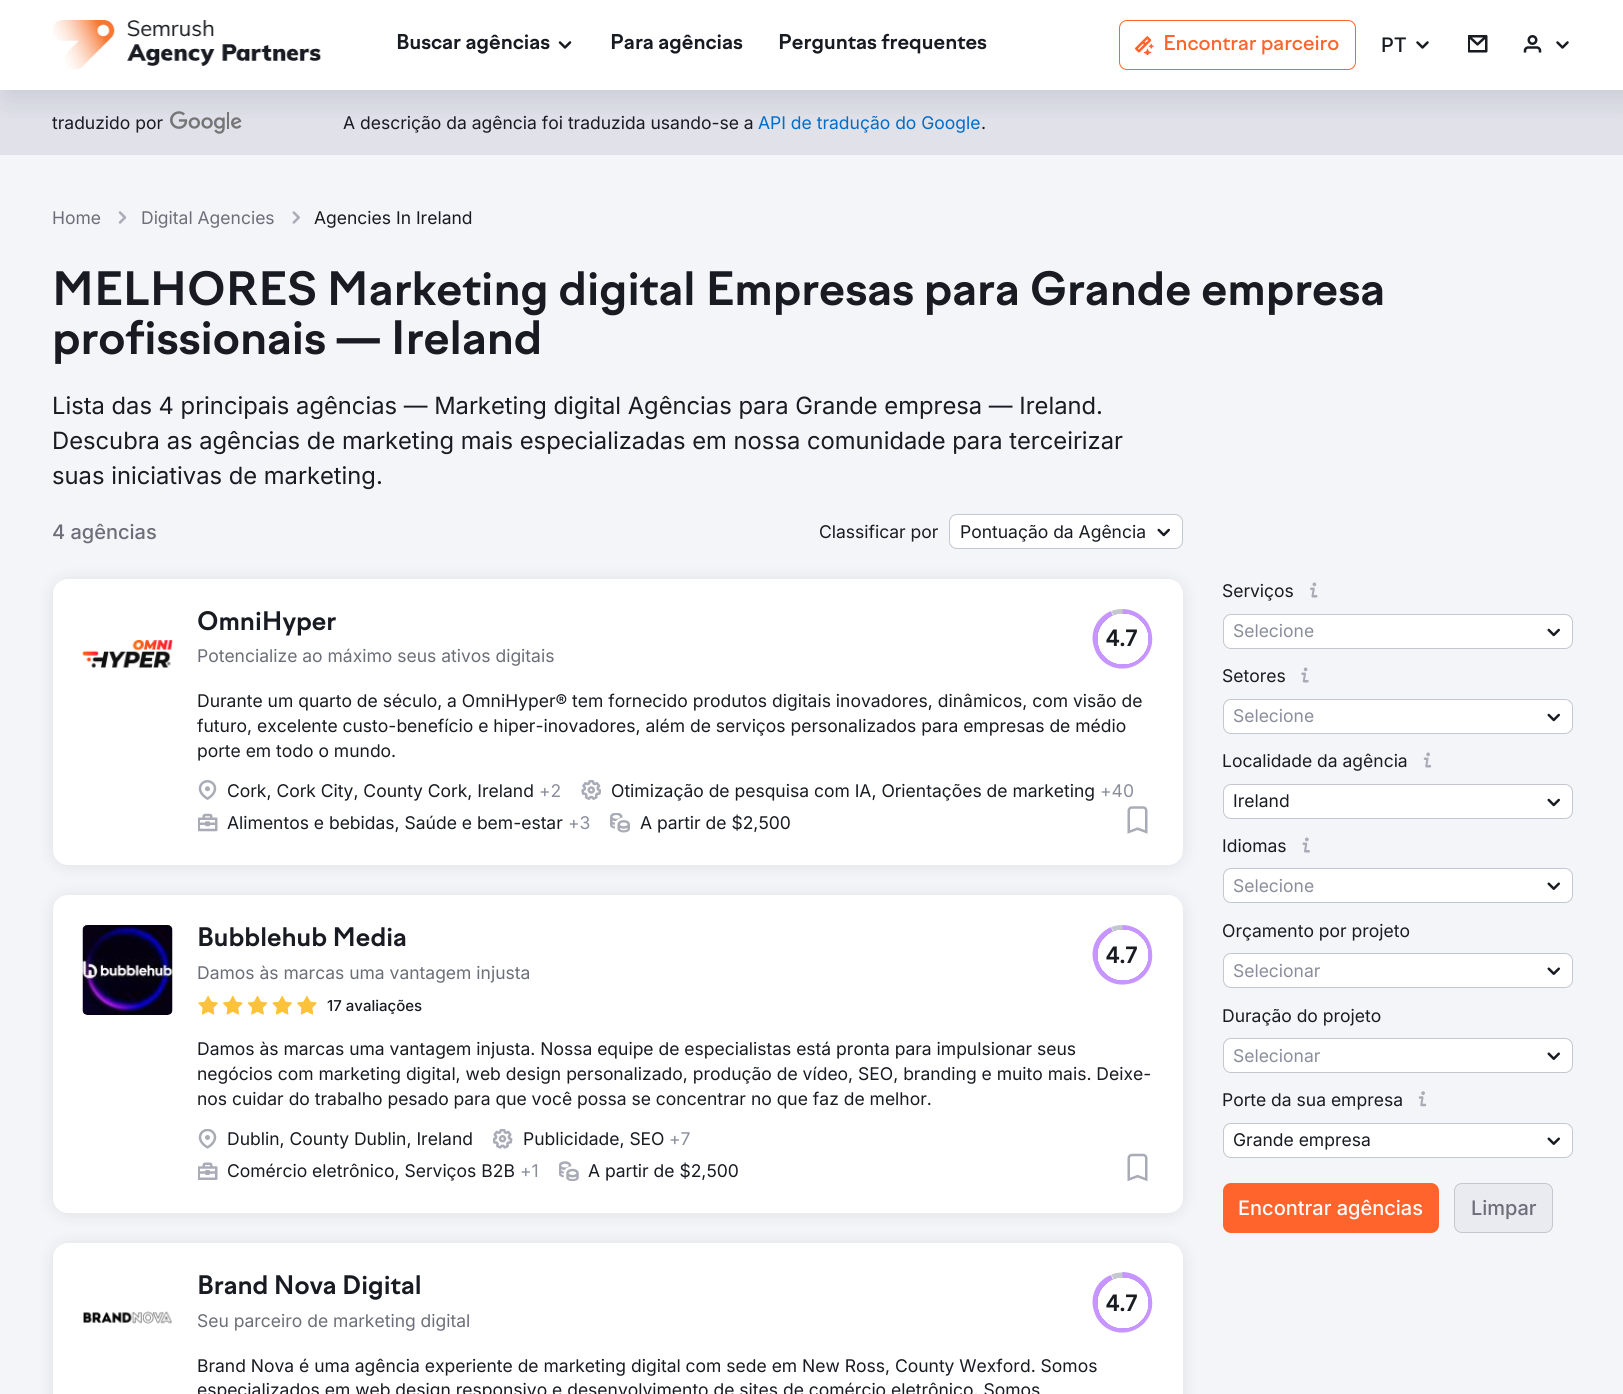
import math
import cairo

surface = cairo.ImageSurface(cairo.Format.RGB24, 1623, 1394)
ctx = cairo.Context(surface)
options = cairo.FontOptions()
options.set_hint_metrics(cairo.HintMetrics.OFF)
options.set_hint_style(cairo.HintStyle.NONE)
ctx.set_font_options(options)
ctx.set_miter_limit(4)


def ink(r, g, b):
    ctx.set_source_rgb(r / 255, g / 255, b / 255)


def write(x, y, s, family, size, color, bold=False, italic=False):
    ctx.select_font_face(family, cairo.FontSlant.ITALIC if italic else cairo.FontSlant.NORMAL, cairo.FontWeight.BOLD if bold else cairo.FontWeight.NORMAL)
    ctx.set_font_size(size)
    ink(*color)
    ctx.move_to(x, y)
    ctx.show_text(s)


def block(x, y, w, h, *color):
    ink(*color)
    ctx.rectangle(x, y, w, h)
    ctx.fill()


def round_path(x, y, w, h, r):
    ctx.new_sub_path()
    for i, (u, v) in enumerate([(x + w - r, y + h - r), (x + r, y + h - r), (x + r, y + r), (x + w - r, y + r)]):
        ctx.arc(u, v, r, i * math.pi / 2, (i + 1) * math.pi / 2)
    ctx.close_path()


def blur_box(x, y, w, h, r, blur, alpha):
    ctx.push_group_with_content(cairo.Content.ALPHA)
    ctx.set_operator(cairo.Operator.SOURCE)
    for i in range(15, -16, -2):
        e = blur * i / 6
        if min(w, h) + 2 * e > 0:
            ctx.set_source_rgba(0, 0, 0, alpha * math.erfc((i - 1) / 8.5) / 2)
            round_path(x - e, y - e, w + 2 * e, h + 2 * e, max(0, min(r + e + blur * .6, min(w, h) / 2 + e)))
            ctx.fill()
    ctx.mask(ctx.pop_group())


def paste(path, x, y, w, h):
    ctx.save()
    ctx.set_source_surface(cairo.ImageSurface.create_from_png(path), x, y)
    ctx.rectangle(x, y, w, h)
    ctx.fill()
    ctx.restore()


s1 = dict(family="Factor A", size=20, color=(25, 27, 35), bold=True)
s2 = dict(family="Factor A Medium", size=20, color=(255, 100, 45))
s3 = dict(family="Inter Medium", size=20, color=(25, 27, 35))
s4 = dict(family="Inter", size=17.5, color=(25, 27, 35))
s5 = dict(family="Inter", size=17.5, color=(0, 109, 202))
s6 = dict(family="Inter", size=17.5, color=(108, 110, 121))
s7 = dict(family="Factor A", size=45, color=(25, 27, 35), bold=True)
s8 = dict(family="Inter", size=23.75, color=(25, 27, 35))
s9 = dict(family="Inter Medium", size=20, color=(108, 110, 121))
s10 = dict(family="Factor A", size=25, color=(25, 27, 35), bold=True)
s11 = dict(family="Factor A", size=22, color=(25, 27, 35), bold=True)
s12 = dict(family="Inter", size=17.5, color=(138, 142, 155))
s13 = dict(family="Inter Medium", size=15, color=(25, 27, 35))
s14 = dict(family="Inter Medium", size=20, color=(255, 255, 255))

ink(255, 255, 255)
ctx.paint()
block(0, 90, 1623, 65, 224, 225, 233)
paste("pic7.png", 170, 111, 72, 23)
ctx.save()
ctx.rectangle(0, 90, 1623, 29)
ctx.clip()
ink(137, 141, 154)
blur_box(6, 6, 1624, 90, 0, 15.5, 0.3)
ctx.restore()
paste("pic1.png", 53, 20, 269, 50)
write(396, 49, "Buscar agências", **s1)
paste("pic2.png", 558, 41, 14, 8)
write(610, 49, "Para agências", **s1)
write(778, 49, "Perguntas frequentes", **s1)
round_path(1119.5, 20.5, 236, 49, 7.5)
ink(255, 100, 45)
ctx.set_line_width(1)
ctx.stroke()
paste("pic3.png", 1135, 36, 19, 19)
write(1163, 50, "Encontrar parceiro", **s2)
write(1381, 52, "PT", **s3)
paste("pic4.png", 1416, 41, 13, 8)
paste("pic5.png", 1468, 35, 20, 18)
paste("pic6.png", 1523, 35, 19, 18)
paste("pic4.png", 1556, 41, 13, 8)
write(52, 129, "traduzido por", **s4)
write(343, 129, "A descrição da agência foi traduzida usando-se a", **s4)
write(758, 129, "API de tradução do Google", **s5)
write(981, 129, ".", **s4)
block(0, 155, 1623, 1239, 244, 245, 249)
write(52, 224, "Home", **s6)
paste("pic8.png", 118, 211, 9, 13)
write(141, 224, "Digital Agencies", **s6)
paste("pic9.png", 292, 211, 8, 13)
write(314, 224, "Agencies In Ireland", **s4)
write(52, 305, "MELHORES Marketing digital Empresas para Grande empresa", **s7)
write(52, 354, "profissionais — Ireland", **s7)
write(52, 414, "Lista das 4 principais agências — Marketing digital Agências para Grande empresa — Ireland.", **s8)
write(52, 449, "Descubra as agências de marketing mais especializadas em nossa comunidade para terceirizar", **s8)
write(52, 484, "suas iniciativas de marketing.", **s8)
write(52, 539, "4 agências", **s9)
write(819, 538, "Classificar por", **s4)
ink(255, 255, 255)
round_path(949.5, 514.5, 233, 34, 7.5)
ctx.fill_preserve()
ink(196, 199, 207)
ctx.stroke()
write(960, 538, "Pontuação da Agência", **s4)
paste("pic10.png", 1157, 528, 13, 9)
ink(25, 27, 35)
blur_box(53, 580, 1130, 286, 15, 7.5, 0.1)
ink(255, 255, 255)
round_path(53, 579, 1130, 286, 15)
ctx.fill()
write(197, 630, "OmniHyper", **s10)
write(197, 662, "Potencialize ao máximo seus ativos digitais", **s6)
ink(198, 149, 255)
ctx.new_path()
ctx.move_to(1122, 639)
ctx.line_to(1122, 609)
ctx.curve_to(1138, 609, 1151, 621, 1152, 636)
ctx.curve_to(1154, 651, 1143, 665, 1128, 668)
ctx.curve_to(1113, 671, 1098, 662, 1094, 647)
ctx.curve_to(1089, 632, 1097, 617, 1111, 611)
ctx.close_path()
ctx.fill()
ink(196, 199, 207)
ctx.new_path()
ctx.move_to(1122.5, 639)
ctx.line_to(1111.5, 611)
ctx.curve_to(1115, 609.5, 1118.5, 609, 1122.5, 609)
ctx.close_path()
ctx.fill()
gradient = cairo.RadialGradient(1123, 639, 0, 1123, 639, 30)
gradient.add_color_stop_rgba(0.84, 1, 1, 1, 1)
gradient.add_color_stop_rgba(0.85, 1, 1, 1, 0)
gradient.add_color_stop_rgba(1, 0, 0, 0, 0)
ctx.set_source(gradient)
ctx.rectangle(1098, 614, 50, 50)
ctx.fill()
write(1106, 646, "4.7", **s11)
paste("pic11.png", 82, 640, 91, 28)
write(197, 707, "Durante um quarto de século, a OmniHyper® tem fornecido produtos digitais inovadores, dinâmicos, com visão de", **s4)
write(197, 732, "futuro, excelente custo-benefício e hiper-inovadores, além de serviços personalizados para empresas de médio", **s4)
write(197, 757, "porte em todo o mundo.", **s4)
paste("pic12.png", 198, 780, 19, 20)
write(227, 797, "Cork, Cork City, County Cork, Ireland", **s4)
write(539, 797, "+2", **s12)
paste("pic13.png", 581, 780, 20, 20)
write(611, 797, "Otimização de pesquisa com IA, Orientações de marketing", **s4)
write(1100, 797, "+40", **s12)
paste("pic14.png", 198, 813, 20, 19)
write(227, 829, "Alimentos e bebidas, Saúde e bem-estar", **s4)
write(568, 829, "+3", **s12)
paste("pic15.png", 610, 813, 20, 20)
write(640, 829, "A partir de $2,500", **s4)
paste("pic16.png", 1127, 806, 21, 28)
ink(25, 27, 35)
blur_box(53, 896, 1130, 318, 15, 7.5, 0.1)
ink(255, 255, 255)
round_path(53, 895, 1130, 318, 15)
ctx.fill()
paste("pic17.png", 82, 925, 91, 90)
write(197, 946, "Bubblehub Media", **s10)
write(197, 979, "Damos às marcas uma vantagem injusta", **s6)
paste("pic18.png", 198, 995, 119, 20)
write(327, 1011, "17 avaliações", **s13)
ink(198, 149, 255)
ctx.new_path()
ctx.move_to(1122, 955)
ctx.line_to(1122, 925)
ctx.curve_to(1138, 925, 1151, 937, 1152, 952)
ctx.curve_to(1154, 968, 1143, 982, 1128, 984)
ctx.curve_to(1113, 987, 1098, 978, 1094, 963)
ctx.curve_to(1089, 949, 1097, 933, 1111, 927)
ctx.close_path()
ctx.fill()
ink(196, 199, 207)
ctx.new_path()
ctx.move_to(1122.5, 955)
ctx.line_to(1111.5, 927)
ctx.curve_to(1115, 925.5, 1118.5, 925, 1122.5, 925)
ctx.close_path()
ctx.fill()
gradient = cairo.RadialGradient(1123, 955, 0, 1123, 955, 30)
gradient.add_color_stop_rgba(0.84, 1, 1, 1, 1)
gradient.add_color_stop_rgba(0.85, 1, 1, 1, 0)
gradient.add_color_stop_rgba(1, 0, 0, 0, 0)
ctx.set_source(gradient)
ctx.rectangle(1098, 930, 50, 50)
ctx.fill()
write(1106, 963, "4.7", **s11)
write(197, 1055, "Damos às marcas uma vantagem injusta. Nossa equipe de especialistas está pronta para impulsionar seus", **s4)
write(197, 1080, "negócios com marketing digital, web design personalizado, produção de vídeo, SEO, branding e muito mais. Deixe-", **s4)
write(197, 1105, "nos cuidar do trabalho pesado para que você possa se concentrar no que faz de melhor.", **s4)
paste("pic19.png", 198, 1129, 19, 20)
write(227, 1145, "Dublin, County Dublin, Ireland", **s4)
paste("pic20.png", 493, 1129, 20, 20)
write(523, 1145, "Publicidade, SEO", **s4)
write(669, 1145, "+7", **s12)
paste("pic21.png", 198, 1162, 20, 18)
write(227, 1177, "Comércio eletrônico, Serviços B2B", **s4)
write(520, 1177, "+1", **s12)
paste("pic22.png", 559, 1161, 20, 20)
write(588, 1177, "A partir de $2,500", **s4)
paste("pic23.png", 1127, 1153, 21, 29)
ink(25, 27, 35)
blur_box(53, 1244, 1130, 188, 15, 7.5, 0.1)
ink(255, 255, 255)
round_path(53, 1243, 1130, 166, 15)
ctx.fill()
write(197, 1294, "Brand Nova Digital", **s10)
write(197, 1327, "Seu parceiro de marketing digital", **s6)
ink(198, 149, 255)
ctx.new_path()
ctx.move_to(1122, 1302)
ctx.line_to(1122, 1272)
ctx.curve_to(1138, 1272, 1151, 1284, 1152, 1300)
ctx.curve_to(1154, 1315, 1143, 1329, 1128, 1332)
ctx.curve_to(1113, 1335, 1098, 1326, 1094, 1311)
ctx.curve_to(1089, 1296, 1097, 1280, 1111, 1275)
ctx.close_path()
ctx.fill()
ink(196, 199, 207)
ctx.new_path()
ctx.move_to(1122.5, 1302.5)
ctx.line_to(1111.5, 1274.5)
ctx.curve_to(1115, 1273, 1118.5, 1272.5, 1122.5, 1272.5)
ctx.close_path()
ctx.fill()
gradient = cairo.RadialGradient(1123, 1303, 0, 1123, 1303, 30)
gradient.add_color_stop_rgba(0.84, 1, 1, 1, 1)
gradient.add_color_stop_rgba(0.85, 1, 1, 1, 0)
gradient.add_color_stop_rgba(1, 0, 0, 0, 0)
ctx.set_source(gradient)
ctx.rectangle(1098, 1278, 50, 50)
ctx.fill()
write(1106, 1311, "4.7", **s11)
paste("pic24.png", 83, 1311, 89, 13)
write(197, 1372, "Brand Nova é uma agência experiente de marketing digital com sede em New Ross, County Wexford. Somos", **s4)
ctx.save()
ctx.rectangle(198, 1353, 955, 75)
ctx.clip()
write(197, 1396, "especializados em web design responsivo e desenvolvimento de sites de comércio eletrônico. Somos", **s4)
ctx.restore()
write(1222, 597, "Serviços", **s4)
paste("pic25.png", 1310, 582, 8, 16)
ink(255, 255, 255)
round_path(1223.5, 614.5, 349, 34, 7.5)
ctx.fill_preserve()
ink(196, 199, 207)
ctx.stroke()
write(1233, 637, "Selecione", **s12)
paste("pic10.png", 1547, 628, 13, 9)
write(1222, 682, "Setores", **s4)
paste("pic26.png", 1301, 667, 8, 16)
ink(255, 255, 255)
round_path(1223.5, 699.5, 349, 34, 7.5)
ctx.fill_preserve()
ink(196, 199, 207)
ctx.stroke()
write(1233, 722, "Selecione", **s12)
paste("pic10.png", 1547, 713, 13, 9)
write(1222, 767, "Localidade da agência", **s4)
paste("pic27.png", 1423, 752, 9, 16)
ink(255, 255, 255)
round_path(1223.5, 784.5, 349, 34, 7.5)
ctx.fill_preserve()
ink(196, 199, 207)
ctx.stroke()
write(1233, 807, "Ireland", **s4)
paste("pic10.png", 1547, 798, 13, 9)
write(1222, 852, "Idiomas", **s4)
paste("pic28.png", 1302, 837, 8, 16)
ink(255, 255, 255)
round_path(1223.5, 868.5, 349, 34, 7.5)
ctx.fill_preserve()
ink(196, 199, 207)
ctx.stroke()
write(1233, 892, "Selecione", **s12)
paste("pic29.png", 1547, 882, 13, 8)
write(1222, 937, "Orçamento por projeto", **s4)
ink(255, 255, 255)
round_path(1223.5, 953.5, 349, 34, 7.5)
ctx.fill_preserve()
ink(196, 199, 207)
ctx.stroke()
write(1233, 977, "Selecionar", **s12)
paste("pic29.png", 1547, 967, 13, 8)
write(1222, 1022, "Duração do projeto", **s4)
ink(255, 255, 255)
round_path(1223.5, 1038.5, 349, 34, 7.5)
ctx.fill_preserve()
ink(196, 199, 207)
ctx.stroke()
write(1233, 1062, "Selecionar", **s12)
paste("pic29.png", 1547, 1052, 13, 8)
write(1222, 1106, "Porte da sua empresa", **s4)
paste("pic30.png", 1418, 1091, 9, 16)
ink(255, 255, 255)
round_path(1223.5, 1123.5, 349, 34, 7.5)
ctx.fill_preserve()
ink(196, 199, 207)
ctx.stroke()
write(1233, 1146, "Grande empresa", **s4)
paste("pic29.png", 1547, 1137, 13, 8)
ink(255, 100, 45)
round_path(1223, 1183, 216, 50, 8)
ctx.fill()
write(1238, 1215, "Encontrar agências", **s14)
ink(233, 235, 240)
round_path(1454.5, 1183.5, 98, 49, 7.5)
ctx.fill_preserve()
ink(196, 199, 207)
ctx.stroke()
write(1471, 1215, "Limpar", **s9)
surface.write_to_png("screenshot.png")
